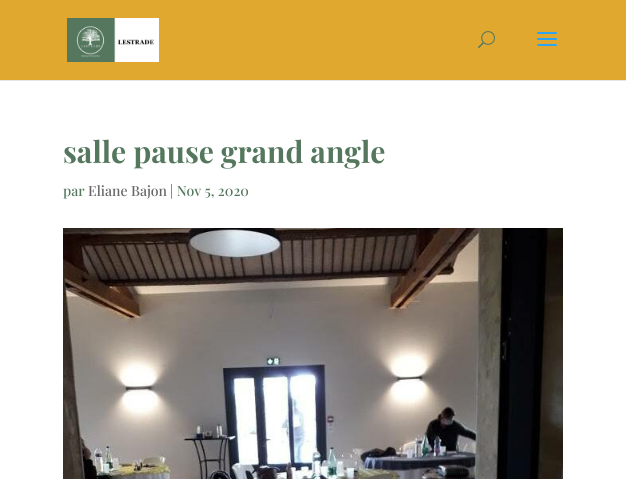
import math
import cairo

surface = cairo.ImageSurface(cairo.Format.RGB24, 626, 479)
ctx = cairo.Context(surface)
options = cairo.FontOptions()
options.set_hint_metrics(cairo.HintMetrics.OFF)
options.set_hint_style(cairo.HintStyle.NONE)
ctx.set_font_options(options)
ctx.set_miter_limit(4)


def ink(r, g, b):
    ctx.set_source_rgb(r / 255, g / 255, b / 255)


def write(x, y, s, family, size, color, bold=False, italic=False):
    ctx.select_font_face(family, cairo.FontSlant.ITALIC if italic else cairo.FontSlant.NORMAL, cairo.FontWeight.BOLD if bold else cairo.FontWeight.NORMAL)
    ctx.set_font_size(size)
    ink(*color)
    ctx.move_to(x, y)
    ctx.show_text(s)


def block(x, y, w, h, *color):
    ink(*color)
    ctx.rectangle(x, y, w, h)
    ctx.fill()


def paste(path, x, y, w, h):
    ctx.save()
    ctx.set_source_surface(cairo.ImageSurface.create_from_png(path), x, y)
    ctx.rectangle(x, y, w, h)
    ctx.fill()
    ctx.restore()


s1 = dict(family="Playfair Display", size=30, color=(85, 119, 94), bold=True)
s2 = dict(family="Playfair Display Medium", size=14, color=(85, 119, 94))
s3 = dict(family="Playfair Display Medium", size=14, color=(102, 102, 102))

ink(255, 255, 255)
ctx.paint()
block(0, 80, 626, 1, 230, 230, 230)
block(0, 0, 626, 80, 224, 168, 47)
paste("pic1.png", 67, 18, 92, 44)
paste("pic2.png", 478, 31, 17, 18)
paste("pic3.png", 537, 32, 20, 14)
write(63, 163, "salle pause grand angle", **s1)
write(63, 196, "par", **s2)
write(88, 196, "Eliane Bajon", **s3)
write(170, 196, "| Nov 5, 2020", **s2)
paste("pic4.png", 63, 228, 500, 251)
surface.write_to_png("screenshot.png")
